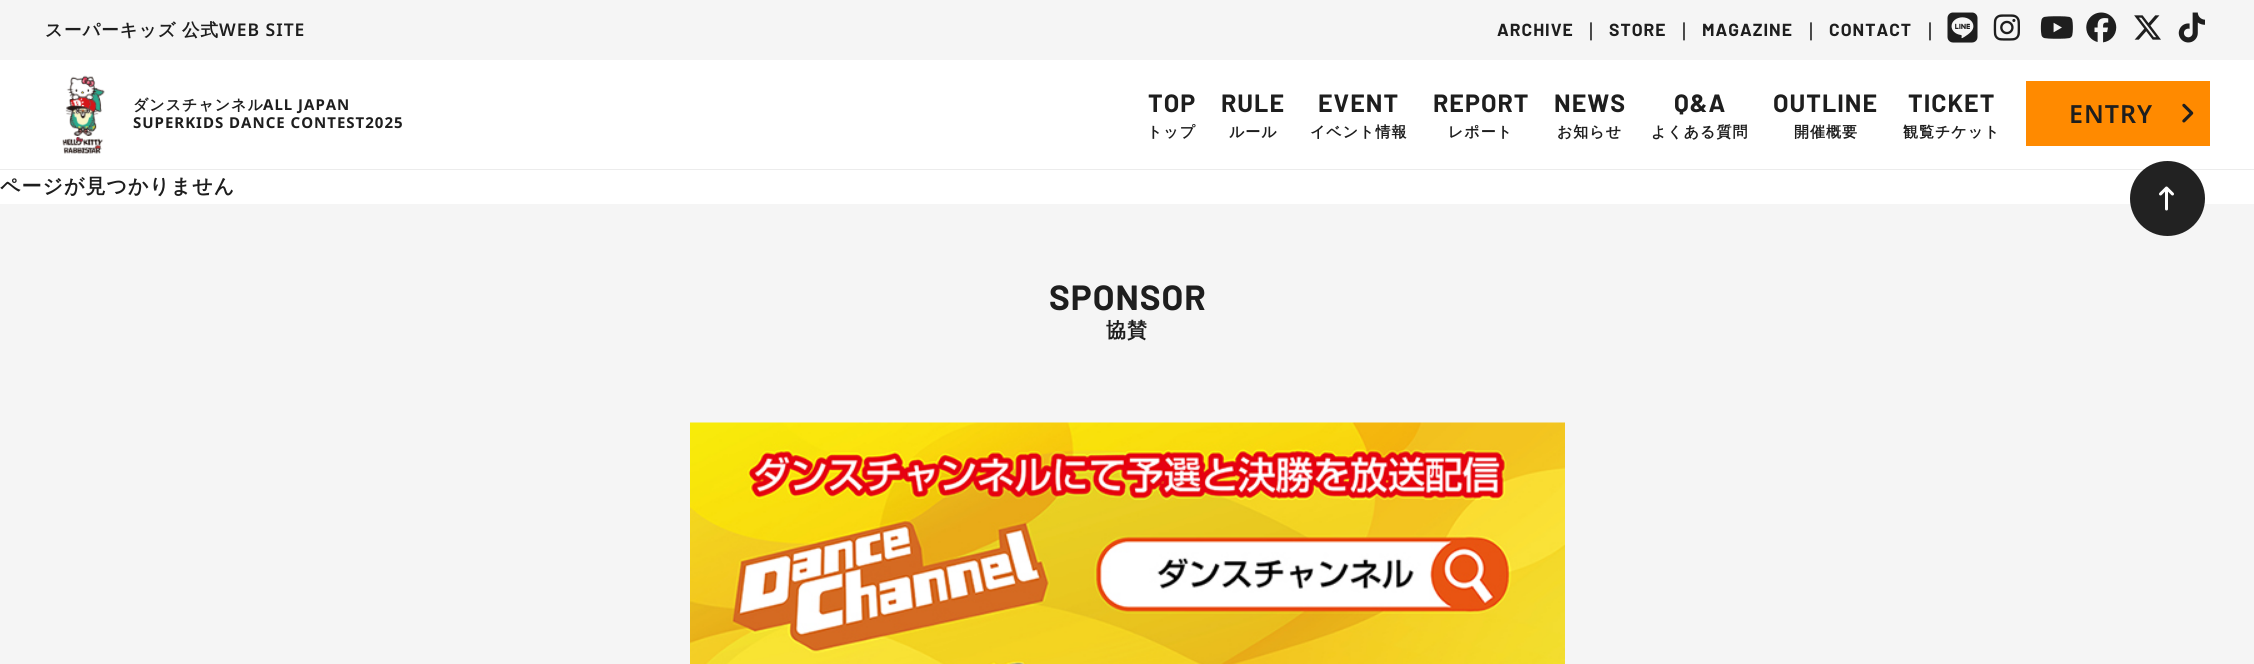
import math
import cairo

surface = cairo.ImageSurface(cairo.Format.RGB24, 2254, 664)
ctx = cairo.Context(surface)
options = cairo.FontOptions()
options.set_hint_metrics(cairo.HintMetrics.OFF)
options.set_hint_style(cairo.HintStyle.NONE)
ctx.set_font_options(options)
ctx.set_miter_limit(4)


def ink(r, g, b):
    ctx.set_source_rgb(r / 255, g / 255, b / 255)


def write_spaced(x, y, s, letter, word):
    ctx.move_to(x, y)
    for ch in s:
        ctx.show_text(ch)
        ctx.rel_move_to(letter + word * (ch == ' '), 0)


def block(x, y, w, h, *color):
    ink(*color)
    ctx.rectangle(x, y, w, h)
    ctx.fill()


def paste(path, x, y, w, h):
    ctx.save()
    ctx.set_source_surface(cairo.ImageSurface.create_from_png(path), x, y)
    ctx.rectangle(x, y, w, h)
    ctx.fill()
    ctx.restore()


ink(255, 255, 255)
ctx.paint()
block(0, 0, 2254, 60, 245, 245, 245)
ctx.select_font_face("WenQuanYi Zen Hei", cairo.FontSlant.NORMAL, cairo.FontWeight.BOLD)
ctx.set_font_size(17.5)
ink(30, 30, 30)
write_spaced(45, 36, "スーパーキッズ", 1, 0)
write_spaced(182, 36, "公式", 1, 0)
ctx.select_font_face("Noto Sans SemiBold")
write_spaced(219, 36, "WEB SITE", 1, 0)
ctx.select_font_face("Barlow", cairo.FontSlant.NORMAL, cairo.FontWeight.BOLD)
write_spaced(1497, 36, "ARCHIVE", 1, 0)
ctx.select_font_face("WenQuanYi Zen Hei", cairo.FontSlant.NORMAL, cairo.FontWeight.BOLD)
write_spaced(1582, 36, "｜", 1, 0)
ctx.select_font_face("Barlow", cairo.FontSlant.NORMAL, cairo.FontWeight.BOLD)
write_spaced(1609, 36, "STORE", 1, 0)
ctx.select_font_face("WenQuanYi Zen Hei", cairo.FontSlant.NORMAL, cairo.FontWeight.BOLD)
write_spaced(1675, 36, "｜", 1, 0)
ctx.select_font_face("Barlow", cairo.FontSlant.NORMAL, cairo.FontWeight.BOLD)
write_spaced(1702, 36, "MAGAZINE", 1, 0)
ctx.select_font_face("WenQuanYi Zen Hei", cairo.FontSlant.NORMAL, cairo.FontWeight.BOLD)
write_spaced(1802, 36, "｜", 1, 0)
ctx.select_font_face("Barlow", cairo.FontSlant.NORMAL, cairo.FontWeight.BOLD)
write_spaced(1829, 36, "CONTACT", 1, 0)
ctx.select_font_face("WenQuanYi Zen Hei", cairo.FontSlant.NORMAL, cairo.FontWeight.BOLD)
write_spaced(1921, 36, "｜", 1, 0)
paste("pic1.png", 1947, 12, 31, 31)
paste("pic2.png", 1993, 14, 27, 27)
paste("pic3.png", 2040, 16, 33, 23)
paste("pic4.png", 2086, 12, 31, 31)
paste("pic5.png", 2134, 15, 27, 25)
paste("pic6.png", 2178, 12, 27, 31)
block(0, 169, 2254, 1, 236, 236, 236)
paste("pic7.png", 62, 75, 43, 79)
ctx.set_font_size(15)
ink(30, 30, 30)
write_spaced(133, 110, "ダンスチャンネル", 1, 0)
ctx.select_font_face("Noto Sans", cairo.FontSlant.NORMAL, cairo.FontWeight.BOLD)
write_spaced(263, 110, "ALL JAPAN", 1, 0)
write_spaced(133, 128, "SUPERKIDS DANCE CONTEST2025", 1, 0)
ctx.select_font_face("Barlow", cairo.FontSlant.NORMAL, cairo.FontWeight.BOLD)
ctx.set_font_size(25)
write_spaced(1148, 112, "TOP", 1, 0)
ctx.select_font_face("WenQuanYi Zen Hei", cairo.FontSlant.NORMAL, cairo.FontWeight.BOLD)
ctx.set_font_size(15)
write_spaced(1147, 137, "トップ", 1, 0)
ctx.select_font_face("Barlow", cairo.FontSlant.NORMAL, cairo.FontWeight.BOLD)
ctx.set_font_size(25)
write_spaced(1221, 112, "RULE", 1, 0)
ctx.select_font_face("WenQuanYi Zen Hei", cairo.FontSlant.NORMAL, cairo.FontWeight.BOLD)
ctx.set_font_size(15)
write_spaced(1229, 137, "ルール", 1, 0)
ctx.select_font_face("Barlow", cairo.FontSlant.NORMAL, cairo.FontWeight.BOLD)
ctx.set_font_size(25)
write_spaced(1318, 112, "EVENT", 1, 0)
ctx.select_font_face("WenQuanYi Zen Hei", cairo.FontSlant.NORMAL, cairo.FontWeight.BOLD)
ctx.set_font_size(15)
write_spaced(1310, 137, "イベント情報", 1, 0)
ctx.select_font_face("Barlow", cairo.FontSlant.NORMAL, cairo.FontWeight.BOLD)
ctx.set_font_size(25)
write_spaced(1433, 112, "REPORT", 1, 0)
ctx.select_font_face("WenQuanYi Zen Hei", cairo.FontSlant.NORMAL, cairo.FontWeight.BOLD)
ctx.set_font_size(15)
write_spaced(1448, 137, "レポート", 1, 0)
ctx.select_font_face("Barlow", cairo.FontSlant.NORMAL, cairo.FontWeight.BOLD)
ctx.set_font_size(25)
write_spaced(1554, 112, "NEWS", 1, 0)
ctx.select_font_face("WenQuanYi Zen Hei", cairo.FontSlant.NORMAL, cairo.FontWeight.BOLD)
ctx.set_font_size(15)
write_spaced(1557, 137, "お知らせ", 1, 0)
ctx.select_font_face("Barlow", cairo.FontSlant.NORMAL, cairo.FontWeight.BOLD)
ctx.set_font_size(25)
write_spaced(1674, 112, "Q&A", 1, 0)
ctx.select_font_face("WenQuanYi Zen Hei", cairo.FontSlant.NORMAL, cairo.FontWeight.BOLD)
ctx.set_font_size(15)
write_spaced(1651, 137, "よくある質問", 1, 0)
ctx.select_font_face("Barlow", cairo.FontSlant.NORMAL, cairo.FontWeight.BOLD)
ctx.set_font_size(25)
write_spaced(1773, 112, "OUTLINE", 1, 0)
ctx.select_font_face("WenQuanYi Zen Hei", cairo.FontSlant.NORMAL, cairo.FontWeight.BOLD)
ctx.set_font_size(15)
write_spaced(1794, 137, "開催概要", 1, 0)
ctx.select_font_face("Barlow", cairo.FontSlant.NORMAL, cairo.FontWeight.BOLD)
ctx.set_font_size(25)
write_spaced(1908, 112, "TICKET", 1, 0)
ctx.select_font_face("WenQuanYi Zen Hei", cairo.FontSlant.NORMAL, cairo.FontWeight.BOLD)
ctx.set_font_size(15)
write_spaced(1903, 137, "観覧チケット", 1, 0)
block(2026, 81, 184, 65, 255, 138, 0)
ctx.select_font_face("Noto Sans SemiBold")
ctx.set_font_size(25)
ink(30, 30, 30)
write_spaced(2069, 123, "ENTRY", 1, 0)
paste("pic8.png", 2182, 103, 12, 20)
ctx.select_font_face("WenQuanYi Zen Hei", cairo.FontSlant.NORMAL, cairo.FontWeight.BOLD)
ctx.set_font_size(20)
write_spaced(0, 193, "ページが見つかりません", 1, 0)
block(0, 204, 2254, 460, 245, 245, 245)
ink(34, 34, 34)
ctx.new_path()
ctx.arc(2167.5, 198.5, 37.5, 0, 2 * math.pi)
ctx.fill()
paste("pic9.png", 2159, 186, 15, 25)
ctx.select_font_face("Barlow", cairo.FontSlant.NORMAL, cairo.FontWeight.BOLD)
ctx.set_font_size(35)
ink(30, 30, 30)
write_spaced(1049, 310, "SPONSOR", 1, 0)
ctx.select_font_face("WenQuanYi Zen Hei", cairo.FontSlant.NORMAL, cairo.FontWeight.BOLD)
ctx.set_font_size(20)
write_spaced(1106, 337, "協賛", 1, 0)
paste("pic10.png", 690, 422, 875, 242)
surface.write_to_png("screenshot.png")
